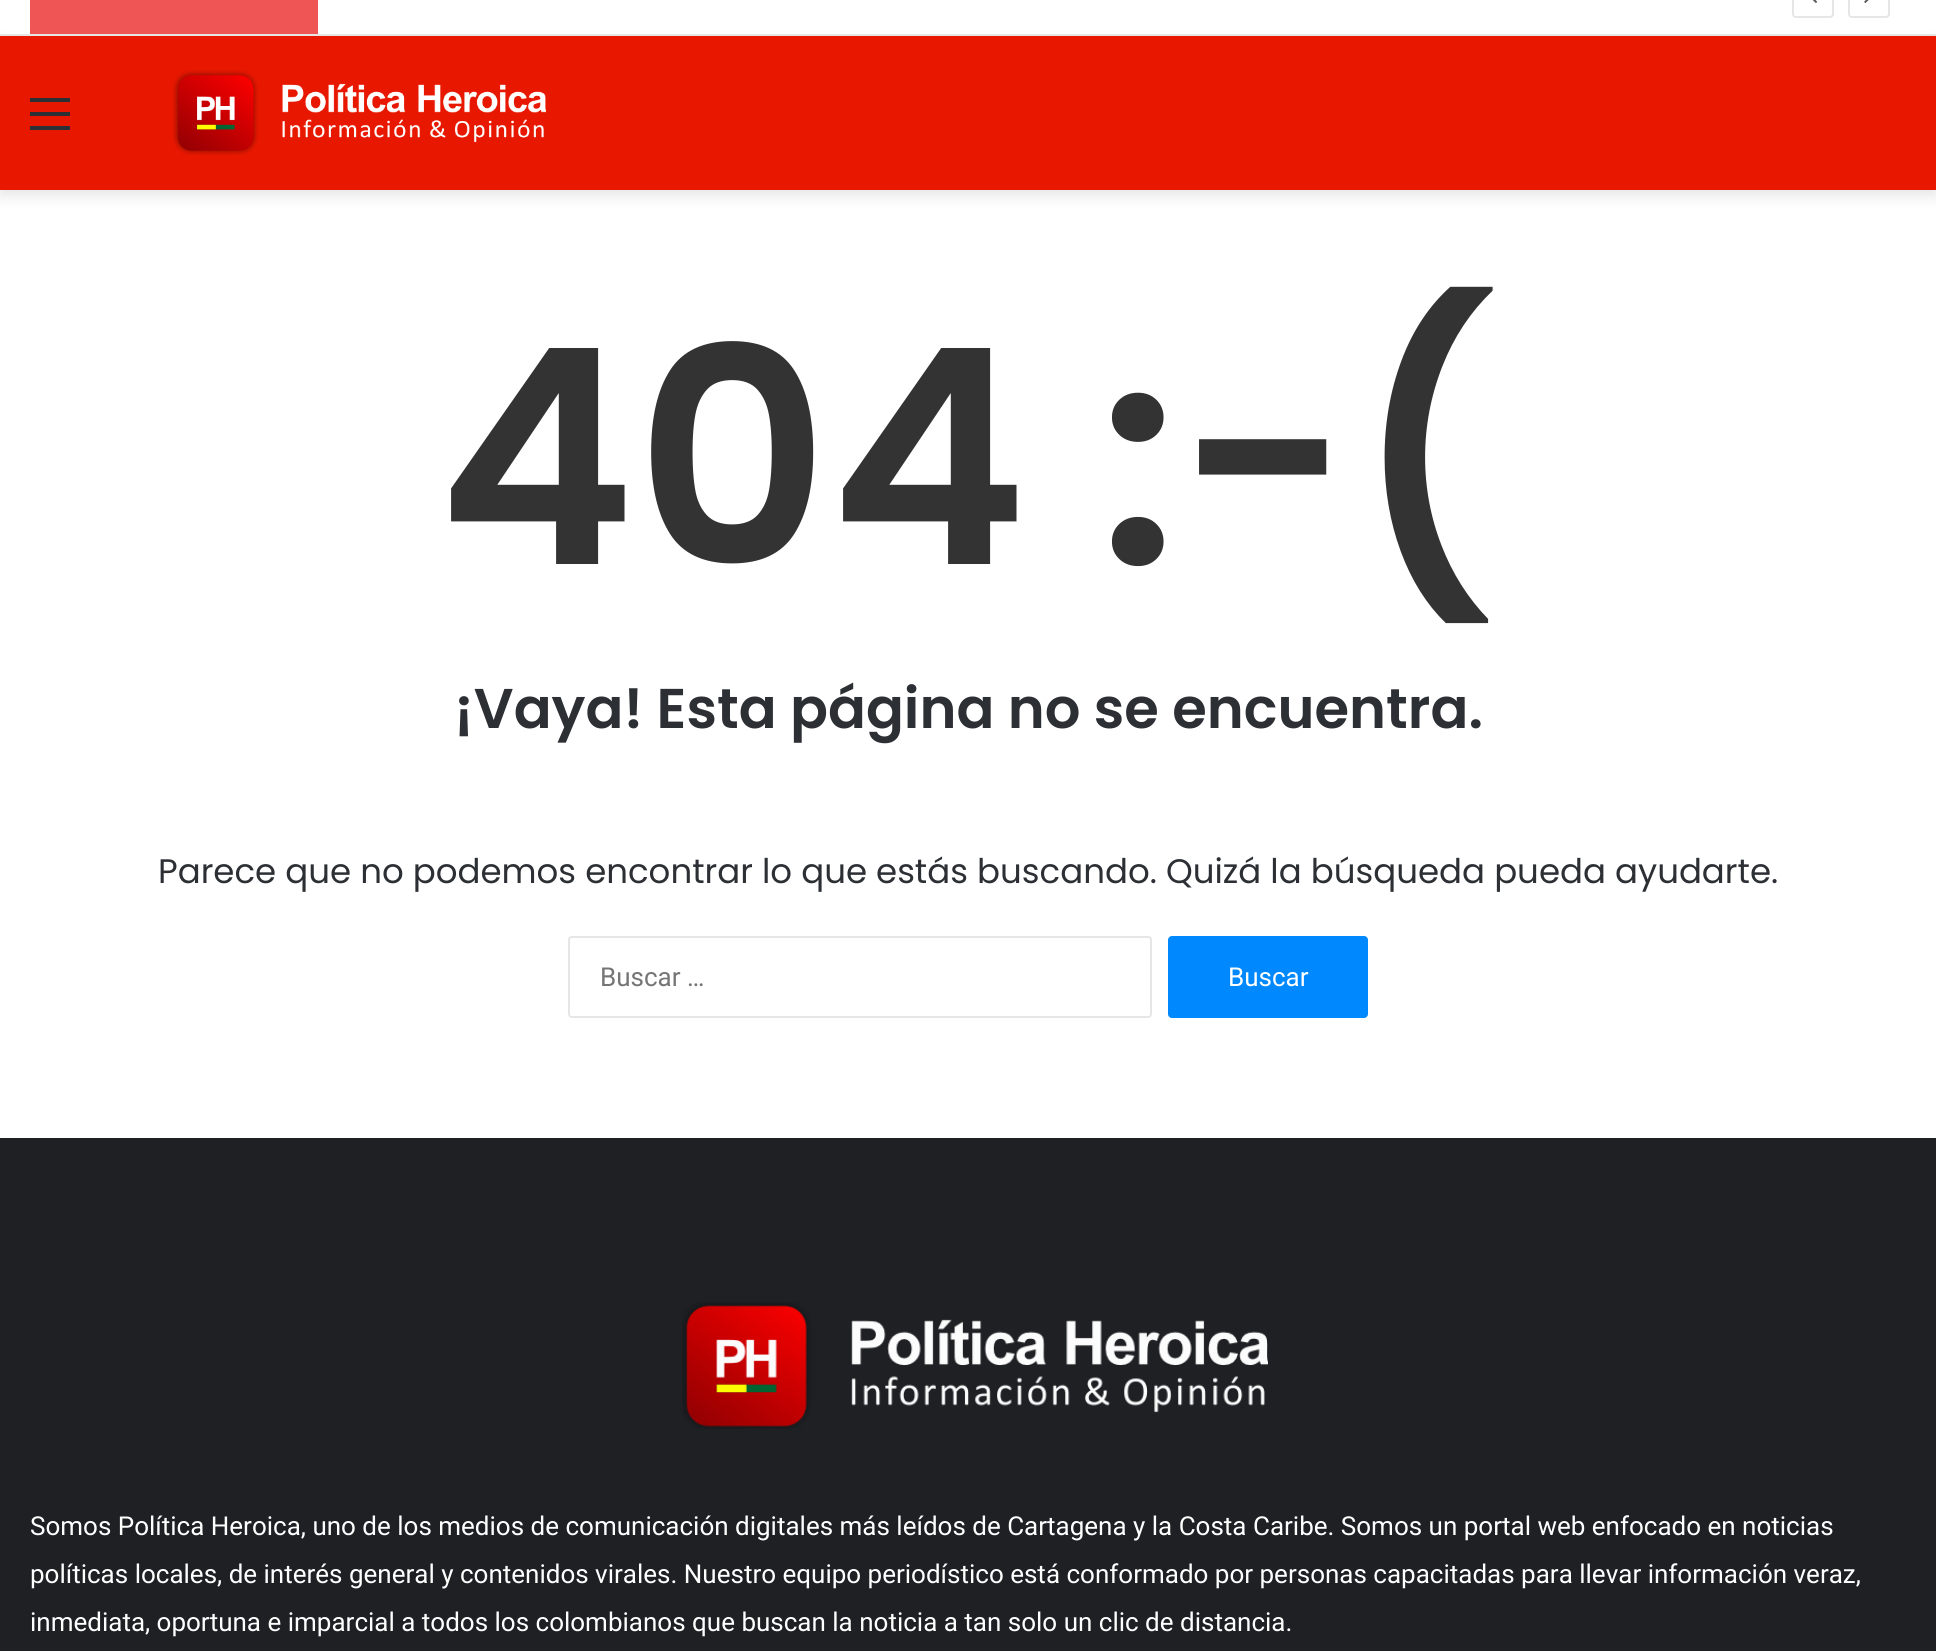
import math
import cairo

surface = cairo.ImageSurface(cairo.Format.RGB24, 1936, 1651)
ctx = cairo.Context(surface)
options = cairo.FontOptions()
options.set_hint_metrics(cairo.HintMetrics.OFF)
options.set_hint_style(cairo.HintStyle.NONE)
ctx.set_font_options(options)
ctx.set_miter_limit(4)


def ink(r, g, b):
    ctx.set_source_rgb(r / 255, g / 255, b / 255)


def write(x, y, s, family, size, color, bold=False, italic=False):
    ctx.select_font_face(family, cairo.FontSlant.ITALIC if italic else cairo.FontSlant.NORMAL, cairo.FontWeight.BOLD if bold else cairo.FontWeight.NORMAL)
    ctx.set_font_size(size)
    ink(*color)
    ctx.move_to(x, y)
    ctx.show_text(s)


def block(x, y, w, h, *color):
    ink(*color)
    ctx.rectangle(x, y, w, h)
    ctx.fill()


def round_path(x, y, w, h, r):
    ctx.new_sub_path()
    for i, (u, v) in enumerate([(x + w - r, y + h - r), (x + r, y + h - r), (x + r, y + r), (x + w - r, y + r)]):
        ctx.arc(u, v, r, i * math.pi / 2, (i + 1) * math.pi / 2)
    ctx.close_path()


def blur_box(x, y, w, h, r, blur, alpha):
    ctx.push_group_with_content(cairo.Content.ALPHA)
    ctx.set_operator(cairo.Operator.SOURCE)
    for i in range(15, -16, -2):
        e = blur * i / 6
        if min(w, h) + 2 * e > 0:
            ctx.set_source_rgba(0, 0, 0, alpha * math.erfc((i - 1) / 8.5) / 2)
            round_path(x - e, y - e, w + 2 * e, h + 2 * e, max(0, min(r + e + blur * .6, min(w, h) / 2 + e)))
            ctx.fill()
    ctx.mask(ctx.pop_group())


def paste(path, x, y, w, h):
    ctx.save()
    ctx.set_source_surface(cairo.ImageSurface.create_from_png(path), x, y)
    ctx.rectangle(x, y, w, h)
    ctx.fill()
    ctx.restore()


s1 = dict(family="Poppins SemiBold", size=300, color=(51, 51, 51))
s2 = dict(family="Poppins SemiBold", size=56, color=(44, 47, 52))
s3 = dict(family="Poppins", size=34, color=(44, 47, 52))
s4 = dict(family="Roboto", size=26, color=(117, 117, 117))
s5 = dict(family="Roboto", size=26, color=(255, 255, 255))

ink(255, 255, 255)
ctx.paint()
ink(0, 0, 0)
blur_box(0, 42, 1936, 154, 0, 7, 0.1)
block(9, 33, 1918, 1, 255, 255, 255)
block(0, 34, 1936, 2, 230, 230, 230)
block(30, 0, 288, 34, 240, 85, 85)
round_path(1793, -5, 40, 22, 3)
ink(230, 230, 230)
ctx.stroke()
paste("pic1.png", 1812, 0, 6, 3)
round_path(1849, -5, 40, 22, 3)
ctx.stroke()
paste("pic2.png", 1864, 0, 5, 3)
block(0, 36, 1936, 154, 232, 23, 0)
block(30, 112, 40, 4, 44, 47, 52)
block(30, 98, 40, 4, 44, 47, 52)
block(30, 126, 40, 4, 44, 47, 52)
paste("pic3.png", 173, 70, 373, 85)
write(437, 564, "404 :-(", **s1)
write(454, 728, "¡Vaya! Esta página no se encuentra.", **s2)
write(158, 883, "Parece que no podemos encontrar lo que estás buscando. Quizá la búsqueda pueda ayudarte.", **s3)
round_path(569, 937, 582, 80, 3)
ink(230, 230, 230)
ctx.stroke()
write(600, 986, "Buscar …", **s4)
ink(0, 136, 255)
round_path(1168, 936, 200, 82, 4)
ctx.fill()
write(1228, 986, "Buscar", **s5)
block(0, 1138, 1936, 513, 31, 32, 36)
paste("pic4.png", 682, 1302, 586, 127)
write(30, 1535, "Somos Política Heroica, uno de los medios de comunicación digitales más leídos de Cartagena y la Costa Caribe. Somos un portal web enfocado en noticias", **s5)
write(30, 1583, "políticas locales, de interés general y contenidos virales. Nuestro equipo periodístico está conformado por personas capacitadas para llevar información veraz,", **s5)
write(30, 1631, "inmediata, oportuna e imparcial a todos los colombianos que buscan la noticia a tan solo un clic de distancia.", **s5)
surface.write_to_png("screenshot.png")
